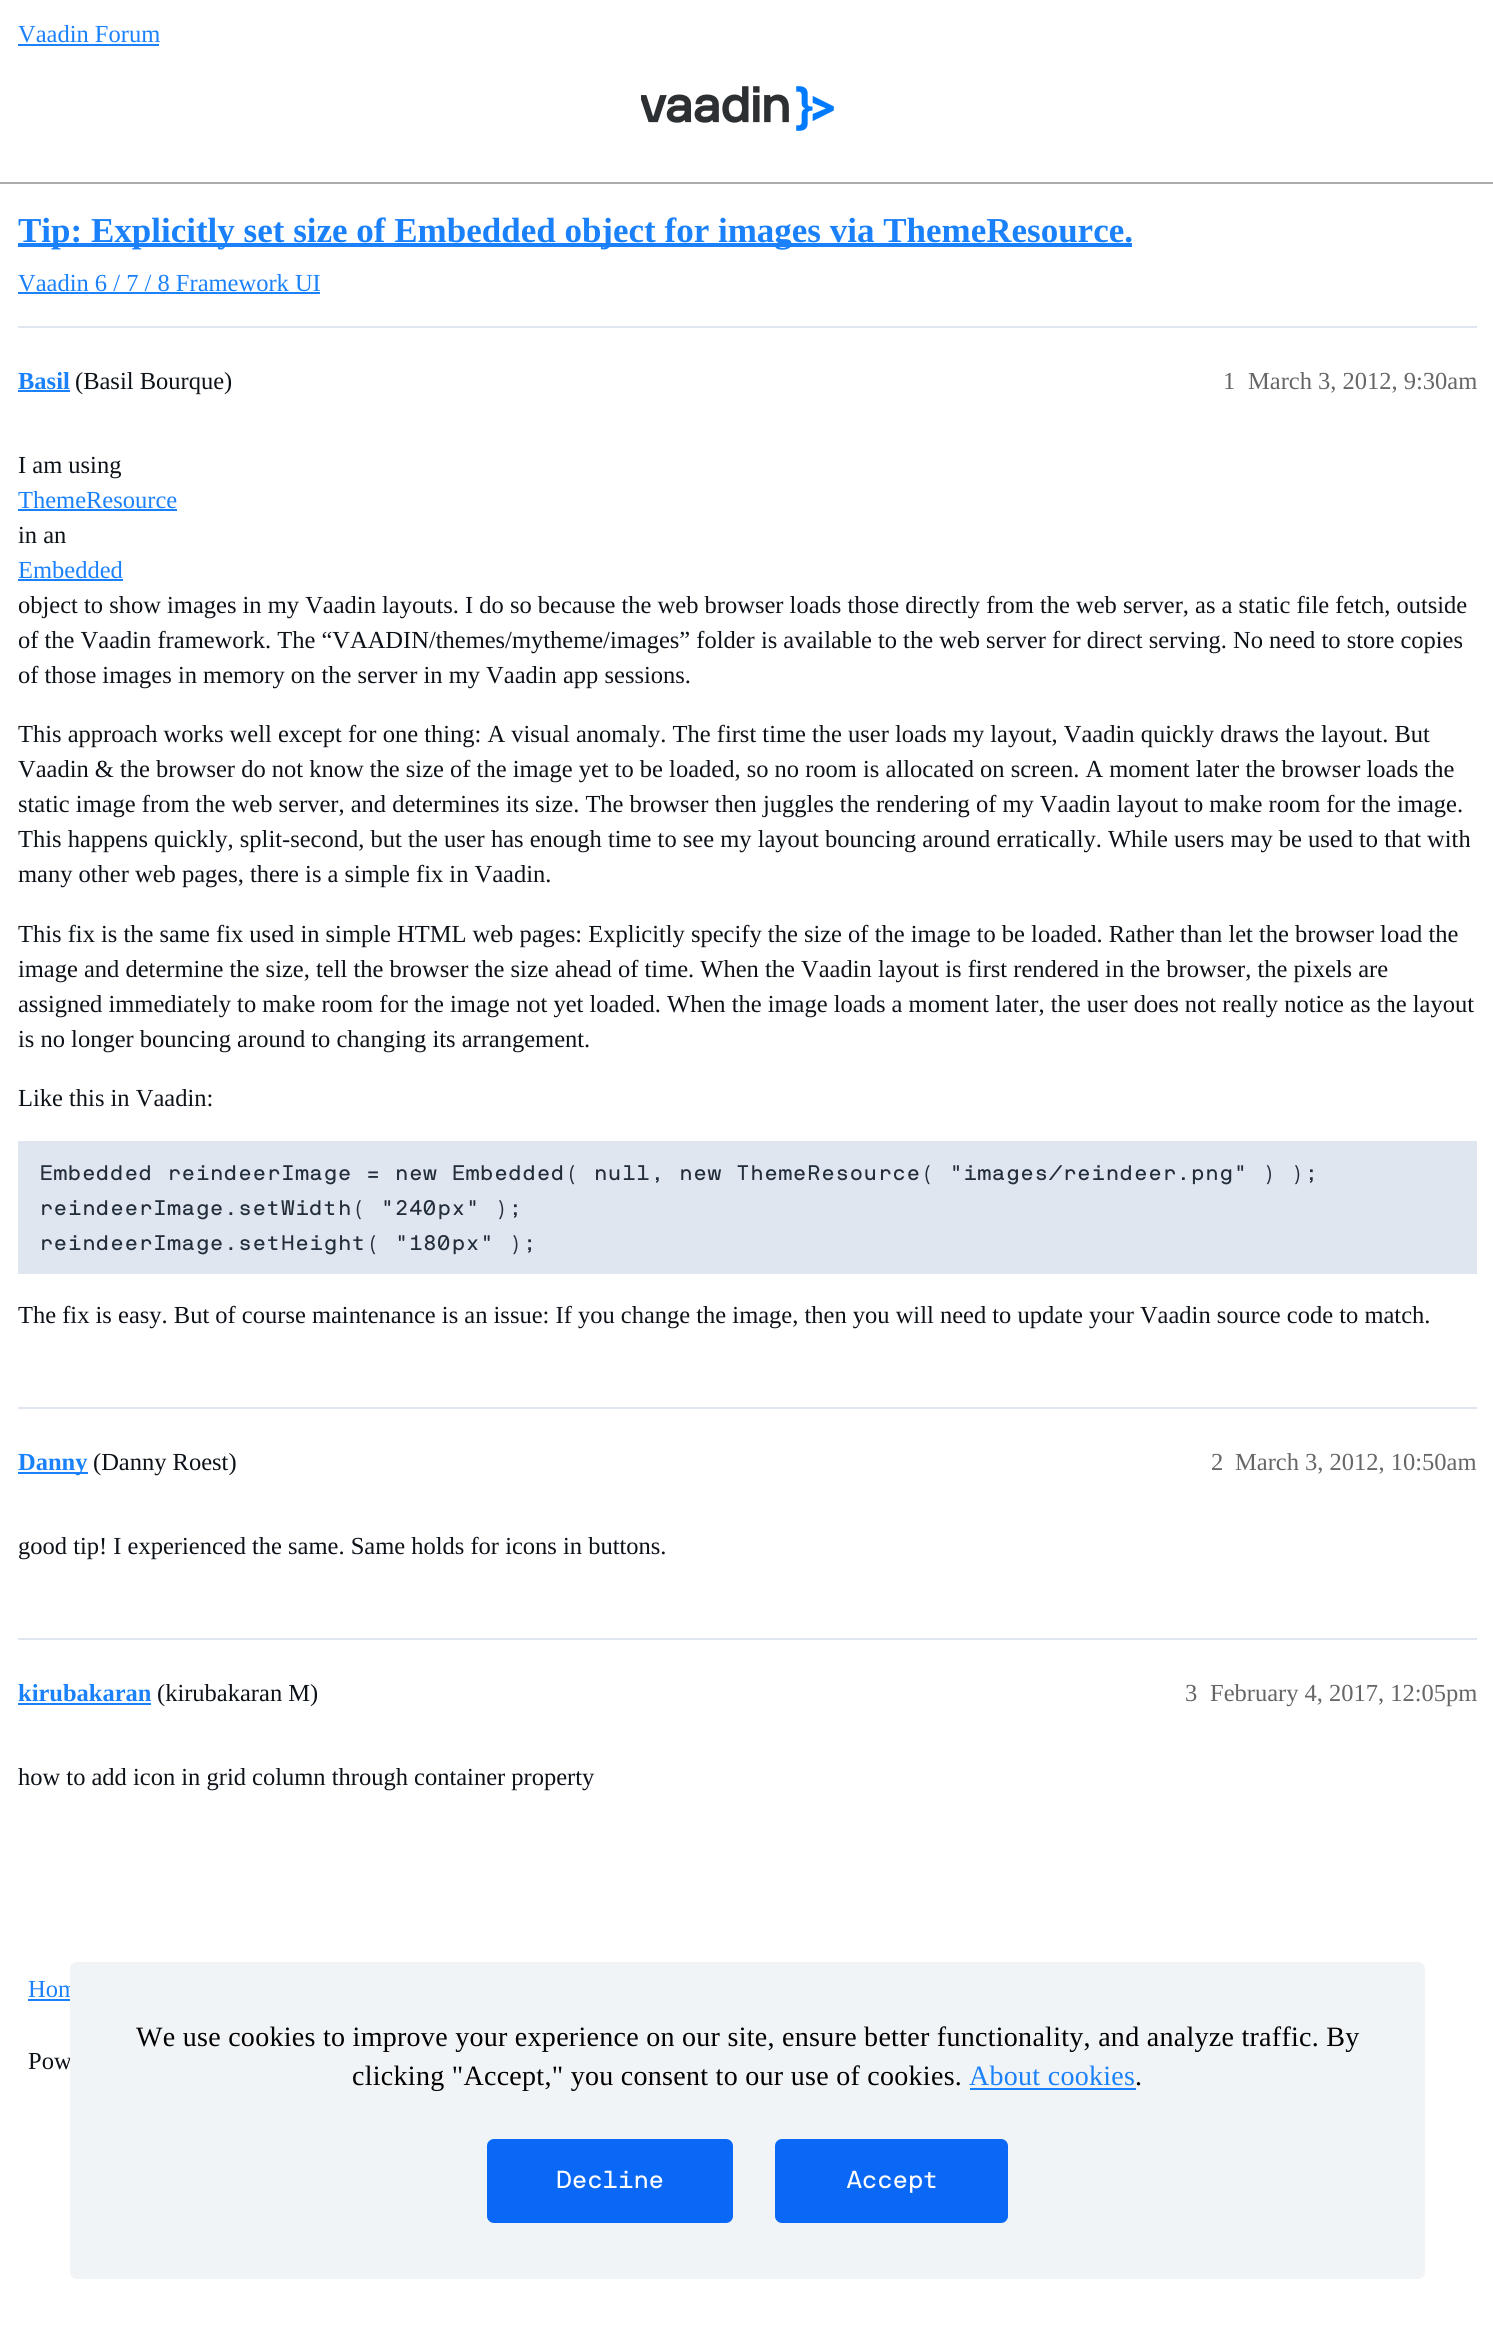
import math
import cairo

surface = cairo.ImageSurface(cairo.Format.RGB24, 1493, 2348)
ctx = cairo.Context(surface)
options = cairo.FontOptions()
options.set_hint_metrics(cairo.HintMetrics.OFF)
options.set_hint_style(cairo.HintStyle.NONE)
ctx.set_font_options(options)
ctx.set_miter_limit(4)


def ink(r, g, b):
    ctx.set_source_rgb(r / 255, g / 255, b / 255)


def write(x, y, s, family, size, color, bold=False, italic=False):
    ctx.select_font_face(family, cairo.FontSlant.ITALIC if italic else cairo.FontSlant.NORMAL, cairo.FontWeight.BOLD if bold else cairo.FontWeight.NORMAL)
    ctx.set_font_size(size)
    ink(*color)
    ctx.move_to(x, y)
    ctx.show_text(s)


def write_spaced(x, y, s, letter, word):
    ctx.move_to(x, y)
    for ch in s:
        ctx.show_text(ch)
        ctx.rel_move_to(letter + word * (ch == ' '), 0)


def block(x, y, w, h, *color):
    ink(*color)
    ctx.rectangle(x, y, w, h)
    ctx.fill()


def round_path(x, y, w, h, r):
    ctx.new_sub_path()
    for i, (u, v) in enumerate([(x + w - r, y + h - r), (x + r, y + h - r), (x + r, y + r), (x + w - r, y + r)]):
        ctx.arc(u, v, r, i * math.pi / 2, (i + 1) * math.pi / 2)
    ctx.close_path()


def paste(path, x, y, w, h):
    ctx.save()
    ctx.set_source_surface(cairo.ImageSurface.create_from_png(path), x, y)
    ctx.rectangle(x, y, w, h)
    ctx.fill()
    ctx.restore()


s1 = dict(family="Liberation Serif", size=24.5, color=(26, 129, 250))
s2 = dict(family="Liberation Serif", size=35, color=(26, 129, 250), bold=True)
s3 = dict(family="Liberation Serif", size=24.5, color=(26, 129, 250), bold=True)
s4 = dict(family="Liberation Serif", size=24.5, color=(13, 18, 25))
s5 = dict(family="Liberation Serif", size=24.5, color=(102, 102, 102))
s6 = dict(family="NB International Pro", size=21, color=(35, 46, 60))

ink(255, 255, 255)
ctx.paint()
block(0, 182, 1493, 2, 171, 172, 172)
write(18, 42, "Vaadin Forum", **s1)
block(18, 44, 141, 2, 26, 129, 250)
paste("pic1.png", 641, 86, 193, 45)
block(18, 243, 1114, 4, 26, 129, 250)
write(18, 242, "Tip: Explicitly set size of Embedded object for images via ThemeResource.", **s2)
write(18, 291, "Vaadin 6 / 7 / 8 Framework UI", **s1)
block(18, 292, 302, 2, 26, 129, 250)
block(18, 326, 1459, 2, 224, 230, 239)
write(18, 389, "Basil", **s3)
block(18, 390, 52, 2, 26, 129, 250)
write(75, 389, "(Basil Bourque)", **s4)
write(1223, 389, "1", **s5)
write(1248, 389, "March 3, 2012, 9:30am", **s5)
write(18, 473, "I am using", **s4)
write(18, 508, "ThemeResource", **s1)
block(18, 509, 159, 2, 26, 129, 250)
write(18, 543, "in an", **s4)
write(18, 578, "Embedded", **s1)
block(18, 579, 105, 2, 26, 129, 250)
write(18, 613, "object to show images in my Vaadin layouts. I do so because the web browser loads those directly from the web server, as a static file fetch, outside", **s4)
write(18, 648, "of the Vaadin framework. The “VAADIN/themes/mytheme/images” folder is available to the web server for direct serving. No need to store copies", **s4)
write(18, 683, "of those images in memory on the server in my Vaadin app sessions.", **s4)
write(18, 742, "This approach works well except for one thing: A visual anomaly. The first time the user loads my layout, Vaadin quickly draws the layout. But", **s4)
write(18, 777, "Vaadin & the browser do not know the size of the image yet to be loaded, so no room is allocated on screen. A moment later the browser loads the", **s4)
write(18, 812, "static image from the web server, and determines its size. The browser then juggles the rendering of my Vaadin layout to make room for the image.", **s4)
write(18, 847, "This happens quickly, split-second, but the user has enough time to see my layout bouncing around erratically. While users may be used to that with", **s4)
write(18, 882, "many other web pages, there is a simple fix in Vaadin.", **s4)
write(18, 942, "This fix is the same fix used in simple HTML web pages: Explicitly specify the size of the image to be loaded. Rather than let the browser load the", **s4)
write(18, 977, "image and determine the size, tell the browser the size ahead of time. When the Vaadin layout is first rendered in the browser, the pixels are", **s4)
write(18, 1012, "assigned immediately to make room for the image not yet loaded. When the image loads a moment later, the user does not really notice as the layout", **s4)
write(18, 1047, "is no longer bouncing around to changing its arrangement.", **s4)
write(18, 1106, "Like this in Vaadin:", **s4)
block(18, 1141, 1459, 133, 224, 230, 239)
write(39, 1180, "Embedded reindeerImage = new Embedded( null, new ThemeResource( \"images/reindeer.png\" ) );", **s6)
write(39, 1215, "reindeerImage.setWidth( \"240px\" );", **s6)
write(39, 1250, "reindeerImage.setHeight( \"180px\" );", **s6)
write(18, 1323, "The fix is easy. But of course maintenance is an issue: If you change the image, then you will need to update your Vaadin source code to match.", **s4)
block(18, 1407, 1459, 2, 224, 230, 239)
block(18, 1472, 70, 2, 26, 129, 250)
write(18, 1470, "Danny", **s3)
write(93, 1470, "(Danny Roest)", **s4)
write(1211, 1470, "2", **s5)
write(1235, 1470, "March 3, 2012, 10:50am", **s5)
write(18, 1554, "good tip! I experienced the same. Same holds for icons in buttons.", **s4)
block(18, 1638, 1459, 2, 224, 230, 239)
write(18, 1701, "kirubakaran", **s3)
block(18, 1703, 133, 2, 26, 129, 250)
write(157, 1701, "(kirubakaran M)", **s4)
write(1185, 1701, "3", **s5)
write(1210, 1701, "February 4, 2017, 12:05pm", **s5)
write(18, 1785, "how to add icon in grid column through container property", **s4)
write(28, 1997, "Hom", **s1)
block(28, 1999, 42, 2, 26, 129, 250)
write(28, 2069, "Pow", **s4)
ink(240, 244, 247)
round_path(70, 1962, 1355, 317, 7)
ctx.fill()
ctx.set_font_size(28)
ink(0, 0, 0)
write_spaced(136, 2046, "We use cookies to improve your experience on our site, ensure better functionality, and analyze traffic. By", 0.28, 0)
write_spaced(352, 2085, "clicking \"Accept,\" you consent to our use of cookies.", 0.28, 0)
ink(26, 129, 250)
write_spaced(969, 2085, "About cookies", 0.28, 0)
block(970, 2088, 166, 2, 26, 129, 250)
ink(0, 0, 0)
write_spaced(1135, 2085, ".", 0.28, 0)
ink(9, 104, 246)
round_path(487, 2139, 246, 84, 7)
ctx.fill()
ctx.select_font_face("NB International Pro")
ctx.set_font_size(24.5)
ink(255, 255, 255)
write_spaced(556, 2188, "Decline", -1.25, 0)
ink(9, 104, 246)
round_path(775, 2139, 233, 84, 7)
ctx.fill()
ink(255, 255, 255)
write_spaced(846, 2188, "Accept", -1.25, 0)
surface.write_to_png("screenshot.png")
